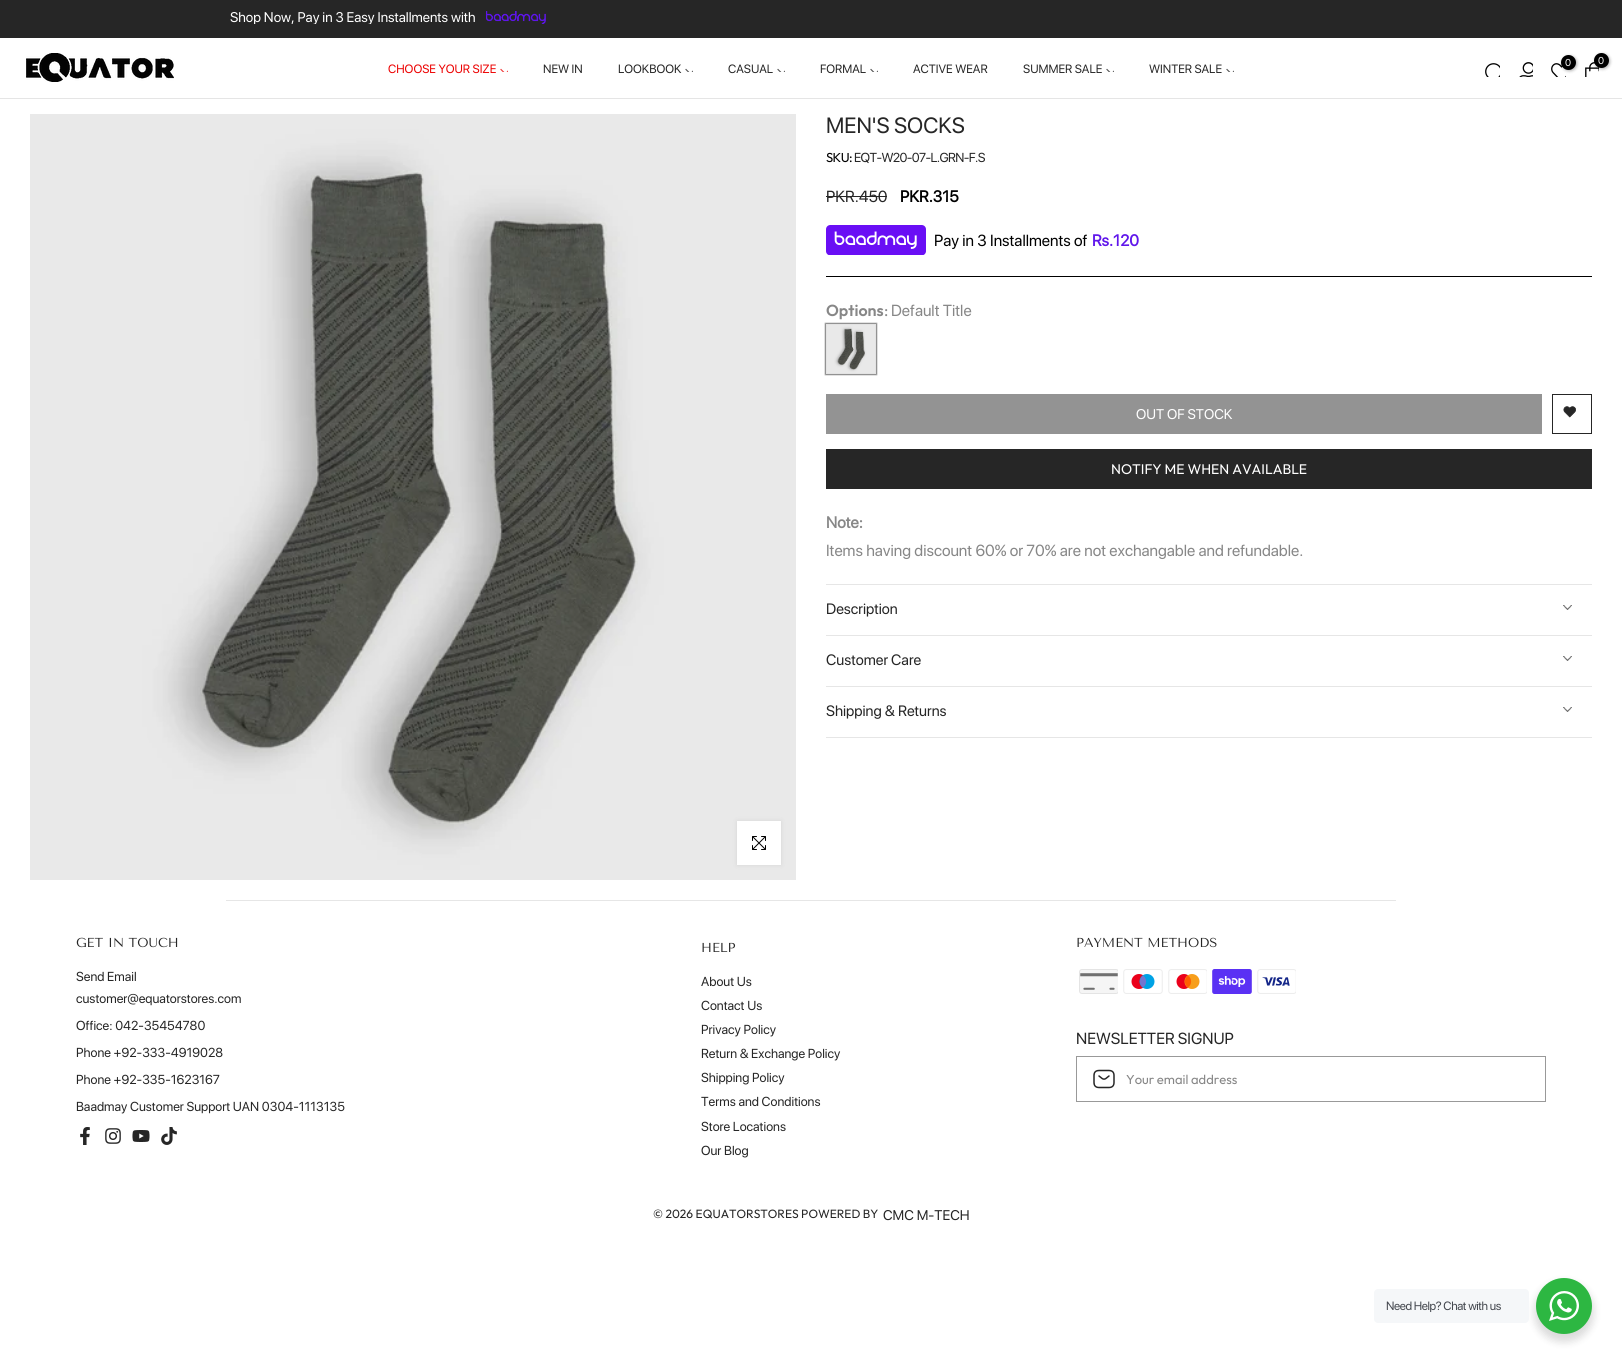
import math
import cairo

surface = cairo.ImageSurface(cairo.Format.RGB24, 1622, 1364)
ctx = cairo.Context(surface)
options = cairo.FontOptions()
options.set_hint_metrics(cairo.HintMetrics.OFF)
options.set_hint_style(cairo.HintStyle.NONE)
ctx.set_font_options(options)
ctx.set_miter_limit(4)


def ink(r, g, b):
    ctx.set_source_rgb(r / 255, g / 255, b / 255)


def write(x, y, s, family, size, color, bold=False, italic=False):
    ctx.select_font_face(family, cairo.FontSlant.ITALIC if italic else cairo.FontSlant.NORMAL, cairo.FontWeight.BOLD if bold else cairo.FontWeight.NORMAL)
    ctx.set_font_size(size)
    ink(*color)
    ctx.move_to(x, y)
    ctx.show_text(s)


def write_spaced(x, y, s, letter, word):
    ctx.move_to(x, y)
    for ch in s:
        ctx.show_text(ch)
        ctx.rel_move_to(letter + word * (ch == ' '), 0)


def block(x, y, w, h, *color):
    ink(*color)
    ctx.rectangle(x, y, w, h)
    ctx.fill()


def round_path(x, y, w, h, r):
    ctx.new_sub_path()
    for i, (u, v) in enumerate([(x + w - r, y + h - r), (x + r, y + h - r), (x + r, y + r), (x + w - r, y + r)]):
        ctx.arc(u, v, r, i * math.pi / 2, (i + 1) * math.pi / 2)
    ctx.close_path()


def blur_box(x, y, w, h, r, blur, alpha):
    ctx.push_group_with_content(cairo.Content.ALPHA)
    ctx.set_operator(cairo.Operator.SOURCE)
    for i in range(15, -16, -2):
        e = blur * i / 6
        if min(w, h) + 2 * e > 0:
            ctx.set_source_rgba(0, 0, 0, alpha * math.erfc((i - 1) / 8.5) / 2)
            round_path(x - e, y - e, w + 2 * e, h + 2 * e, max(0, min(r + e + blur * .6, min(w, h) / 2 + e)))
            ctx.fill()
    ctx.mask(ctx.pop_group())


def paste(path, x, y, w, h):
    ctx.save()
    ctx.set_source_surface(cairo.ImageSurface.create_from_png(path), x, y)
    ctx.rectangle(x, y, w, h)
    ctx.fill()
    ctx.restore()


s1 = dict(family="SF Pro Display", size=14, color=(255, 255, 255))
s2 = dict(family="SF Pro Display", size=10, color=(255, 255, 255))
s3 = dict(family="SF Pro Display", size=12, color=(236, 1, 1))
s4 = dict(family="SF Pro Display", size=12, color=(38, 38, 38))
s5 = dict(family="SF Pro Display", size=22, color=(38, 38, 38))
s6 = dict(family="SF Pro Display", size=16, color=(38, 38, 38))
s7 = dict(family="SF Pro Display", size=16, color=(0, 0, 0), bold=True)
s8 = dict(family="SF Pro Display", size=16, color=(0, 0, 0))
s9 = dict(family="SF Pro Display", size=16, color=(96, 22, 235), bold=True)
s10 = dict(family="Outfit SemiBold", size=16, color=(135, 135, 135))
s11 = dict(family="Outfit", size=16, color=(135, 135, 135))
s12 = dict(family="SF Pro Display", size=16, color=(135, 135, 135))
s13 = dict(family="Outfit", size=14, color=(255, 255, 255))
s14 = dict(family="SF Pro Display", size=16, color=(135, 135, 135), bold=True)
s15 = dict(family="SF Pro Display", size=15, color=(38, 38, 38))
s16 = dict(family="Tenor Sans", size=13, color=(38, 38, 38))
s17 = dict(family="SF Pro Display", size=13, color=(38, 38, 38))
s18 = dict(family="Outfit", size=13, color=(135, 135, 135))
s19 = dict(family="Outfit", size=12, color=(38, 38, 38))
s20 = dict(family="SF Pro Display", size=14, color=(38, 38, 38))

ink(255, 255, 255)
ctx.paint()
block(0, 0, 1622, 38, 38, 38, 38)
ctx.save()
ctx.rectangle(15, 6, 1187, 18)
ctx.clip()
write(230, 22, "Shop Now, Pay in 3 Easy Installments with", **s1)
ctx.restore()
paste("pic1.png", 486, 11, 60, 13)
block(0, 98, 1622, 1, 229, 229, 229)
paste("pic2.png", 26, 53, 148, 29)
paste("pic3.png", 1485, 63, 15, 14)
paste("pic4.png", 1519, 62, 14, 15)
paste("pic5.png", 1551, 63, 15, 14)
ink(0, 0, 0)
blur_box(1562, 56, 15, 15, 7.5, 1.5, 0.3)
ink(0, 0, 0)
ctx.arc(1568.5, 62.5, 7.5, 0, 2 * math.pi)
ctx.fill()
write(1565, 66, "0", **s2)
paste("pic6.png", 1585, 62, 14, 15)
ink(0, 0, 0)
blur_box(1595, 54, 15, 15, 7.5, 1.5, 0.3)
ink(0, 0, 0)
ctx.arc(1601.5, 60.5, 7.5, 0, 2 * math.pi)
ctx.fill()
write(1598, 64, "0", **s2)
write(388, 73, "CHOOSE YOUR SIZE", **s3)
ctx.save()
ctx.rectangle(500, 66, 8, 6)
ctx.clip()
ctx.new_path()
ctx.move_to(509.5, 69.5)
ctx.line_to(505.5, 74)
ctx.line_to(501, 69.5)
ink(240, 52, 52)
ctx.set_line_width(1.1)
ctx.set_line_cap(cairo.LineCap.SQUARE)
ctx.stroke()
ctx.restore()
write(543, 73, "NEW IN", **s4)
write(618, 73, "LOOKBOOK", **s4)
ctx.save()
ctx.rectangle(685, 66, 8, 6)
ctx.clip()
ctx.new_path()
ctx.move_to(694.5, 69.5)
ctx.line_to(690.5, 74)
ctx.line_to(686, 69.5)
ink(81, 81, 81)
ctx.set_line_width(1.1)
ctx.set_line_cap(cairo.LineCap.SQUARE)
ctx.stroke()
ctx.restore()
write(728, 73, "CASUAL", **s4)
ctx.save()
ctx.rectangle(777, 66, 8, 6)
ctx.clip()
ctx.new_path()
ctx.move_to(786.5, 69.5)
ctx.line_to(782.5, 74)
ctx.line_to(778, 69.5)
ink(81, 81, 81)
ctx.set_line_width(1.1)
ctx.set_line_cap(cairo.LineCap.SQUARE)
ctx.stroke()
ctx.restore()
write(820, 73, "FORMAL", **s4)
ctx.save()
ctx.rectangle(870, 66, 8, 6)
ctx.clip()
ctx.new_path()
ctx.move_to(879.5, 69.5)
ctx.line_to(875.5, 74)
ctx.line_to(871, 69.5)
ink(81, 81, 81)
ctx.set_line_width(1.1)
ctx.set_line_cap(cairo.LineCap.SQUARE)
ctx.stroke()
ctx.restore()
write(913, 73, "ACTIVE WEAR", **s4)
write(1023, 73, "SUMMER SALE", **s4)
ctx.save()
ctx.rectangle(1106, 66, 8, 6)
ctx.clip()
ctx.new_path()
ctx.move_to(1115.5, 69.5)
ctx.line_to(1111.5, 74)
ctx.line_to(1107, 69.5)
ink(81, 81, 81)
ctx.set_line_width(1.1)
ctx.set_line_cap(cairo.LineCap.SQUARE)
ctx.stroke()
ctx.restore()
write(1149, 73, "WINTER SALE", **s4)
ctx.save()
ctx.rectangle(1226, 66, 8, 6)
ctx.clip()
ctx.new_path()
ctx.move_to(1235.5, 69.5)
ctx.line_to(1231.5, 74)
ctx.line_to(1227, 69.5)
ink(81, 81, 81)
ctx.set_line_width(1.1)
ctx.set_line_cap(cairo.LineCap.SQUARE)
ctx.stroke()
ctx.restore()
paste("pic7.png", 30, 114, 766, 766)
ink(0, 0, 0)
blur_box(737, 821, 44, 44, 0, 2.5, 0.09)
block(737, 821, 44, 44, 255, 255, 255)
paste("pic8.png", 752, 836, 14, 14)
write(826, 133, "MEN'S SOCKS", **s5)
ctx.select_font_face("Outfit")
ctx.set_font_size(13)
ink(0, 0, 0)
write_spaced(826, 162, "SKU:", -0.6, 0)
ctx.select_font_face("SF Pro Display")
ink(38, 38, 38)
write_spaced(854, 162, "EQT-W20-07-L.GRN-F.S", -0.6, 0)
write(826, 202, "PKR.450", **s6)
block(826, 196, 61, 1, 38, 38, 38)
write(900, 202, "PKR.315", **s7)
block(826, 276, 766, 1, 0, 0, 0)
paste("pic9.png", 826, 225, 100, 30)
write(934, 246, "Pay in 3 Installments of", **s8)
write(1092, 246, "Rs.120", **s9)
write(826, 316, "Options", **s10)
write(884, 316, ":", **s11)
write(891, 316, "Default Title", **s12)
ink(0, 0, 0)
blur_box(825, 323, 52, 52, 0, 0.5, 0.49)
ctx.rectangle(826.5, 324.5, 49, 49)
ink(227, 227, 227)
ctx.set_line_width(1)
ctx.stroke()
paste("pic10.png", 827, 325, 48, 48)
block(826, 394, 716, 40, 147, 147, 147)
write(1136, 419, "OUT OF STOCK", **s1)
ctx.rectangle(1552.5, 394.5, 39, 39)
ink(38, 38, 38)
ctx.stroke()
paste("pic11.png", 1563, 406, 13, 12)
block(826, 449, 766, 40, 38, 38, 38)
write(1111, 474, "NOTIFY ME WHEN AVAILABLE", **s13)
write(826, 528, "Note:", **s14)
write(826, 556, "Items having discount 60% or 70% are not exchangable and refundable.", **s12)
block(826, 584, 766, 1, 230, 230, 230)
write(826, 614, "Description", **s15)
paste("pic12.png", 1563, 605, 9, 5)
block(826, 635, 766, 1, 230, 230, 230)
write(826, 665, "Customer Care", **s15)
paste("pic12.png", 1563, 656, 9, 5)
block(826, 686, 766, 1, 230, 230, 230)
block(826, 737, 766, 1, 230, 230, 230)
write(826, 716, "Shipping & Returns", **s15)
paste("pic12.png", 1563, 707, 9, 5)
block(226, 900, 1170, 1, 230, 230, 230)
write(76, 947, "GET IN TOUCH", **s16)
write(76, 981, "Send Email", **s17)
write(76, 1003, "customer@equatorstores.com", **s17)
write(76, 1030, "Office: 042-35454780", **s17)
write(76, 1057, "Phone +92-333-4919028", **s17)
write(76, 1084, "Phone +92-335-1623167", **s17)
write(76, 1111, "Baadmay Customer Support UAN 0304-1113135", **s17)
paste("pic13.png", 80, 1127, 10, 18)
paste("pic14.png", 105, 1128, 16, 16)
paste("pic15.png", 132, 1130, 18, 12)
paste("pic16.png", 161, 1127, 16, 18)
write(701, 952, "HELP", **s16)
write(701, 986, "About Us", **s17)
write(701, 1010, "Contact Us", **s17)
write(701, 1034, "Privacy Policy", **s17)
write(701, 1058, "Return & Exchange Policy", **s17)
write(701, 1082, "Shipping Policy", **s17)
write(701, 1106, "Terms and Conditions", **s17)
write(701, 1131, "Store Locations", **s17)
write(701, 1155, "Our Blog", **s17)
write(1076, 947, "PAYMENT METHODS", **s16)
paste("pic17.png", 1079, 969, 39, 25)
paste("pic18.png", 1123, 969, 40, 25)
paste("pic19.png", 1168, 969, 39, 25)
paste("pic20.png", 1212, 969, 40, 25)
paste("pic21.png", 1257, 969, 39, 25)
write(1076, 1044, "NEWSLETTER SIGNUP", **s6)
ctx.rectangle(1076.5, 1056.5, 469, 45)
ink(153, 153, 153)
ctx.stroke()
paste("pic22.png", 1093, 1069, 22, 20)
write(1126, 1084, "Your email address", **s18)
write(653, 1218, "© 2026 EQUATORSTORES POWERED BY", **s19)
write(883, 1220, "CMC M-TECH", **s20)
ink(0, 0, 0)
blur_box(1534, 1282, 60, 60, 30, 4, 0.14)
ink(245, 247, 249)
round_path(1374, 1289, 155, 34, 4)
ctx.fill()
ctx.set_font_size(12)
ink(67, 71, 78)
write_spaced(1386, 1310, "Need Help? Chat with us", -0.4, 0)
ink(45, 183, 66)
ctx.new_path()
ctx.arc(1564, 1306, 28, 0, 2 * math.pi)
ctx.fill()
paste("pic23.png", 1549, 1291, 30, 30)
surface.write_to_png("screenshot.png")
